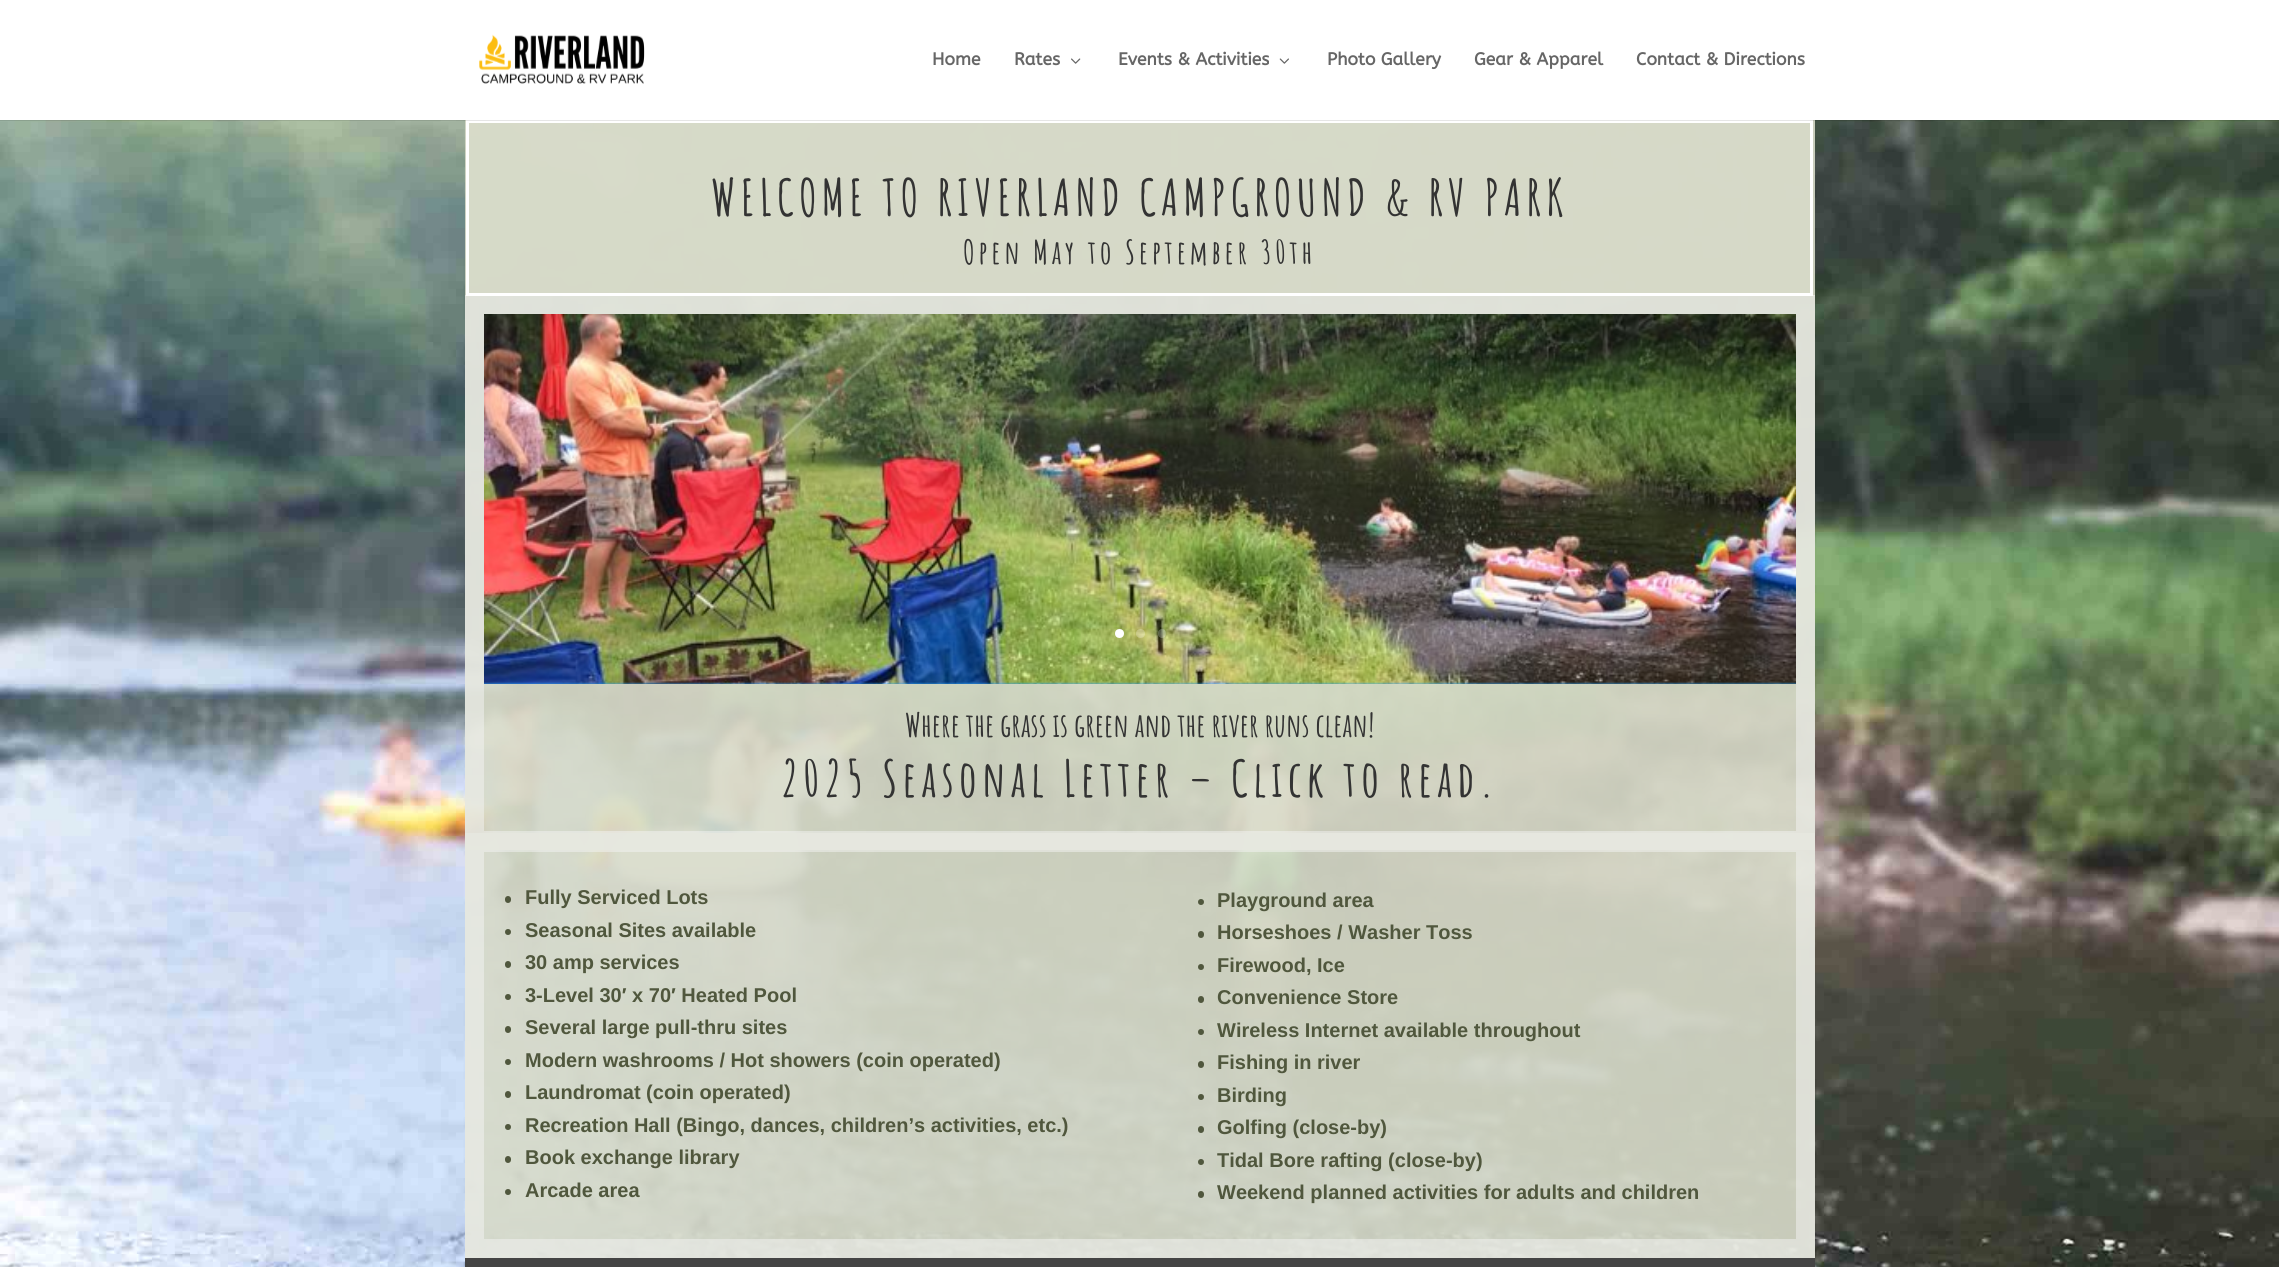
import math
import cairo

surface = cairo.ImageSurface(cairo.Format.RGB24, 2279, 1267)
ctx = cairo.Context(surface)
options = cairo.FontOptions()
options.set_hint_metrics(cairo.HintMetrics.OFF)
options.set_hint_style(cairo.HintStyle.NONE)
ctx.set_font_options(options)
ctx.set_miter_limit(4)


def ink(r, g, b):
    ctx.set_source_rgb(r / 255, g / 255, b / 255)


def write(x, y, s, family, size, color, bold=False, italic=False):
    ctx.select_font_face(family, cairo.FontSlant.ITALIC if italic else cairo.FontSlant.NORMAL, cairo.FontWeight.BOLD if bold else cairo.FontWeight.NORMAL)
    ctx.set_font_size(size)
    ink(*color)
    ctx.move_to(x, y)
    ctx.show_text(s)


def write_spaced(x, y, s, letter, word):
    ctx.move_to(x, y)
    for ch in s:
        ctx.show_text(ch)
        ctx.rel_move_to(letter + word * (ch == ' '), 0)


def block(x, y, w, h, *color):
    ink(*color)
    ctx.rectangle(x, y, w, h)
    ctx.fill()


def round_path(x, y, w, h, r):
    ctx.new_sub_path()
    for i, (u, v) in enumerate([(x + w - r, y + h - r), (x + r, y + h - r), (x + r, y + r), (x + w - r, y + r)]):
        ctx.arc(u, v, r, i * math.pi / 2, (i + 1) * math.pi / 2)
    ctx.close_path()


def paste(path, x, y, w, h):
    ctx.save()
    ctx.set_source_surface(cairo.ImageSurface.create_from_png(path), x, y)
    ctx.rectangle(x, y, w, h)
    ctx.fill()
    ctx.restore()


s1 = dict(family="ABeeZee", size=17.5, color=(102, 102, 102), bold=True)
s2 = dict(family="Amatic SC", size=32.5, color=(51, 51, 51), bold=True)
s3 = dict(family="Liberation Sans", size=20, color=(80, 87, 61), bold=True)

ink(255, 255, 255)
ctx.paint()
paste("pic4.png", 0, 120, 2279, 1147)
ctx.set_source_rgba(0.843, 0.859, 0.788, 0.9)
ctx.rectangle(465, 120, 1350, 176)
ctx.fill()
ctx.rectangle(465, 295, 1350, 555)
ctx.fill()
ctx.rectangle(474.5, 304.5, 1331, 536)
ctx.set_source_rgba(0.957, 0.957, 0.957, 0.5)
ctx.set_line_width(19)
ctx.stroke()
ctx.set_source_rgba(0.843, 0.859, 0.788, 0.9)
ctx.rectangle(467.5, 121.5, 1344, 173)
ctx.fill_preserve()
ink(255, 255, 255)
ctx.set_line_width(3)
ctx.stroke()
ctx.set_source_rgba(0, 0, 0, 0.1)
ctx.rectangle(0, 120, 2279, 1)
ctx.fill()
paste("pic1.png", 479, 34, 166, 50)
write(932, 65, "Home", **s1)
write(1014, 65, "Rates", **s1)
paste("pic2.png", 1071, 58, 10, 6)
write(1118, 65, "Events & Activities", **s1)
paste("pic3.png", 1279, 58, 10, 6)
write(1327, 65, "Photo Gallery", **s1)
write(1474, 65, "Gear & Apparel", **s1)
write(1636, 65, "Contact & Directions", **s1)
ctx.select_font_face("Amatic SC", cairo.FontSlant.NORMAL, cairo.FontWeight.BOLD)
ctx.set_font_size(50)
ink(51, 51, 51)
write_spaced(711, 216, "WELCOME TO RIVERLAND CAMPGROUND & RV PARK", 5, 0)
ctx.set_font_size(32.5)
write_spaced(963, 264, "Open May to September 30th", 3.75, 0)
block(484, 682, 1312, 2, 46, 163, 242)
paste("pic5.png", 484, 314, 1312, 370)
ink(255, 255, 255)
ctx.arc(1119.5, 633.5, 4.5, 0, 2 * math.pi)
ctx.fill()
ctx.set_source_rgba(1, 1, 1, 0.25)
ctx.arc(1140.5, 633.5, 4.5, 0, 2 * math.pi)
ctx.fill()
round_path(1158, 629, 8, 9, 4)
ctx.fill()
write(905, 737, "Where the grass is green and the river runs clean!", **s2)
ctx.set_font_size(50)
write_spaced(781, 797, "2025 Seasonal Letter – Click to read.", 5, 0)
ctx.set_source_rgba(0.843, 0.859, 0.788, 0.9)
ctx.rectangle(465, 833, 1350, 425)
ctx.fill()
ctx.rectangle(474.5, 842.5, 1331, 406)
ctx.set_source_rgba(0.957, 0.957, 0.957, 0.5)
ctx.set_line_width(19)
ctx.stroke()
ink(80, 87, 61)
round_path(505, 896, 6, 7, 3)
ctx.fill()
write(525, 904, "Fully Serviced Lots", **s3)
ctx.new_path()
ctx.arc(508, 932, 3, 0, 2 * math.pi)
ctx.fill()
write(525, 937, "Seasonal Sites available", **s3)
round_path(505, 961, 6, 7, 3)
ctx.fill()
write(525, 969, "30 amp services", **s3)
ctx.new_path()
ctx.arc(508, 997, 3, 0, 2 * math.pi)
ctx.fill()
write(525, 1002, "3-Level 30′ x 70′ Heated Pool", **s3)
round_path(505, 1026, 6, 7, 3)
ctx.fill()
write(525, 1034, "Several large pull-thru sites", **s3)
ctx.new_path()
ctx.arc(508, 1062, 3, 0, 2 * math.pi)
ctx.fill()
write(525, 1067, "Modern washrooms / Hot showers (coin operated)", **s3)
round_path(505, 1091, 6, 7, 3)
ctx.fill()
write(525, 1099, "Laundromat (coin operated)", **s3)
ctx.new_path()
ctx.arc(508, 1127, 3, 0, 2 * math.pi)
ctx.fill()
write(525, 1132, "Recreation Hall (Bingo, dances, children’s activities, etc.)", **s3)
round_path(505, 1156, 6, 7, 3)
ctx.fill()
write(525, 1164, "Book exchange library", **s3)
ctx.new_path()
ctx.arc(508, 1192, 3, 0, 2 * math.pi)
ctx.fill()
write(525, 1197, "Arcade area", **s3)
ctx.new_path()
ctx.arc(1201, 902, 3, 0, 2 * math.pi)
ctx.fill()
write(1217, 907, "Playground area", **s3)
round_path(1198, 931, 6, 7, 3)
ctx.fill()
write(1217, 939, "Horseshoes / Washer Toss", **s3)
ctx.new_path()
ctx.arc(1201, 967, 3, 0, 2 * math.pi)
ctx.fill()
write(1217, 972, "Firewood, Ice", **s3)
round_path(1198, 996, 6, 7, 3)
ctx.fill()
write(1217, 1004, "Convenience Store", **s3)
ctx.new_path()
ctx.arc(1201, 1032, 3, 0, 2 * math.pi)
ctx.fill()
write(1217, 1037, "Wireless Internet available throughout", **s3)
round_path(1198, 1061, 6, 7, 3)
ctx.fill()
write(1217, 1069, "Fishing in river", **s3)
ctx.new_path()
ctx.arc(1201, 1097, 3, 0, 2 * math.pi)
ctx.fill()
write(1217, 1102, "Birding", **s3)
round_path(1198, 1126, 6, 7, 3)
ctx.fill()
write(1217, 1134, "Golfing (close-by)", **s3)
ctx.new_path()
ctx.arc(1201, 1162, 3, 0, 2 * math.pi)
ctx.fill()
write(1217, 1167, "Tidal Bore rafting (close-by)", **s3)
round_path(1198, 1191, 6, 7, 3)
ctx.fill()
write(1217, 1199, "Weekend planned activities for adults and children", **s3)
block(465, 1258, 1350, 9, 68, 68, 68)
surface.write_to_png("screenshot.png")
